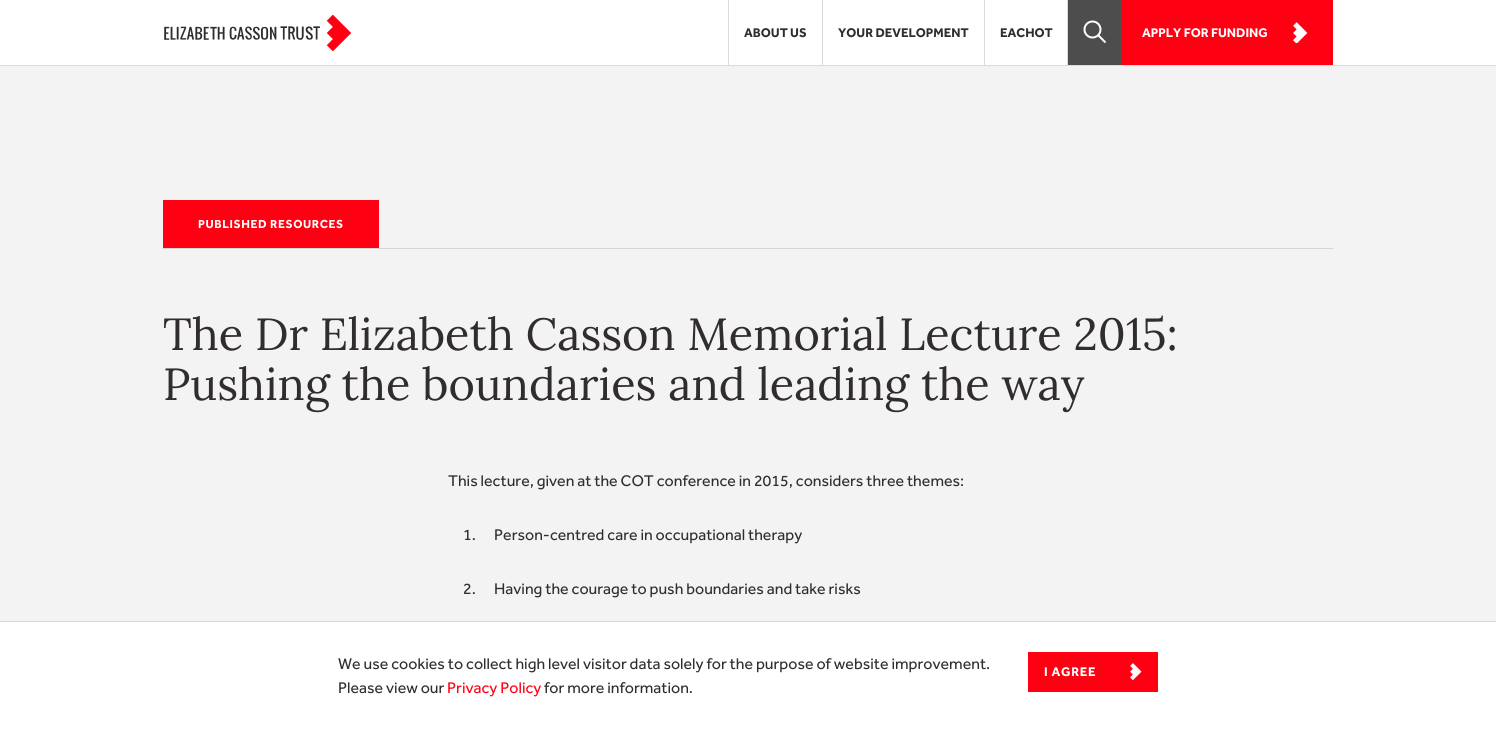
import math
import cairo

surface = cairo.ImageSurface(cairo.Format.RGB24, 1496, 730)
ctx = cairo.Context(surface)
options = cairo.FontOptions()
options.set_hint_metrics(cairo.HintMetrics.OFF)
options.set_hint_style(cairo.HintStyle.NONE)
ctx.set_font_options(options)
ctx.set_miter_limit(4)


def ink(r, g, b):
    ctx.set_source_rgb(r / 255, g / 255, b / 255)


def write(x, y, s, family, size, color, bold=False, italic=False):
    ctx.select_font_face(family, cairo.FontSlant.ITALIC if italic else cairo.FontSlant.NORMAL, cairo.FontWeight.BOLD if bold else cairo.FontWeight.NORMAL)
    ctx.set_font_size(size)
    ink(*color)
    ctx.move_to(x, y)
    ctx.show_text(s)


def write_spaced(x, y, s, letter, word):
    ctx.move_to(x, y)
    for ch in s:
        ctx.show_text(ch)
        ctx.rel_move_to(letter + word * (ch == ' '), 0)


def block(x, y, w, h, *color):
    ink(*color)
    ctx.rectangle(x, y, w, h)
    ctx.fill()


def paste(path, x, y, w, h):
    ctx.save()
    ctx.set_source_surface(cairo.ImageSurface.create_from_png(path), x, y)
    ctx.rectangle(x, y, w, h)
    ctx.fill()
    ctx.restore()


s1 = dict(family="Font", size=13, color=(49, 44, 45), bold=True)
s2 = dict(family="Font", size=13, color=(255, 255, 255), bold=True)
s3 = dict(family="Lora", size=45, color=(49, 44, 45))
s4 = dict(family="Font", size=16, color=(49, 44, 45))
s5 = dict(family="Font", size=16, color=(255, 0, 19))

ink(243, 243, 243)
ctx.paint()
block(0, 0, 1496, 65, 255, 255, 255)
block(0, 65, 1496, 1, 219, 219, 219)
paste("pic1.png", 164, 14, 188, 37)
block(728, 0, 1, 65, 219, 219, 219)
write(744, 37, "ABOUT US", **s1)
block(822, 0, 1, 65, 219, 219, 219)
write(838, 37, "YOUR DEVELOPMENT", **s1)
block(984, 0, 1, 65, 219, 219, 219)
write(1000, 37, "EACHOT", **s1)
block(1068, 0, 54, 65, 78, 77, 77)
block(1067, 0, 1, 65, 219, 219, 219)
ctx.new_path()
ctx.arc(1092.5, 29.5, 8, 0, 2 * math.pi)
ink(255, 255, 255)
ctx.stroke()
ctx.new_path()
ctx.move_to(1098.5, 35.5)
ctx.line_to(1105.5, 42.5)
ctx.stroke()
block(1122, 0, 211, 65, 255, 0, 19)
write(1142, 37, "APPLY FOR FUNDING", **s2)
paste("pic2.png", 1293, 22, 15, 21)
block(163, 248, 1170, 1, 214, 214, 214)
block(163, 200, 216, 48, 255, 0, 19)
ctx.set_font_size(12)
ink(255, 255, 255)
write_spaced(198, 228, "PUBLISHED RESOURCES", 0.6, 0)
write(163, 350, "The Dr Elizabeth Casson Memorial Lecture 2015:", **s3)
write(163, 400, "Pushing the boundaries and leading the way", **s3)
write(448, 486, "This lecture, given at the COT conference in 2015, considers three themes:", **s4)
write(463, 540, "1.", **s4)
write(494, 540, "Person-centred care in occupational therapy", **s4)
write(463, 594, "2.", **s4)
write(494, 594, "Having the courage to push boundaries and take risks", **s4)
block(0, 622, 1496, 108, 255, 255, 255)
block(0, 621, 1496, 1, 216, 216, 216)
write(338, 669, "We use cookies to collect high level visitor data solely for the purpose of website improvement.", **s4)
write(338, 693, "Please view our", **s4)
write(447, 693, "Privacy Policy", **s5)
write(544, 693, "for more information.", **s4)
block(1028, 652, 130, 40, 255, 0, 19)
paste("pic3.png", 1130, 663, 12, 18)
ctx.select_font_face("Font", cairo.FontSlant.NORMAL, cairo.FontWeight.BOLD)
ctx.set_font_size(13)
ink(255, 255, 255)
write_spaced(1044, 676, "I AGREE", 0.75, 0)
surface.write_to_png("screenshot.png")
